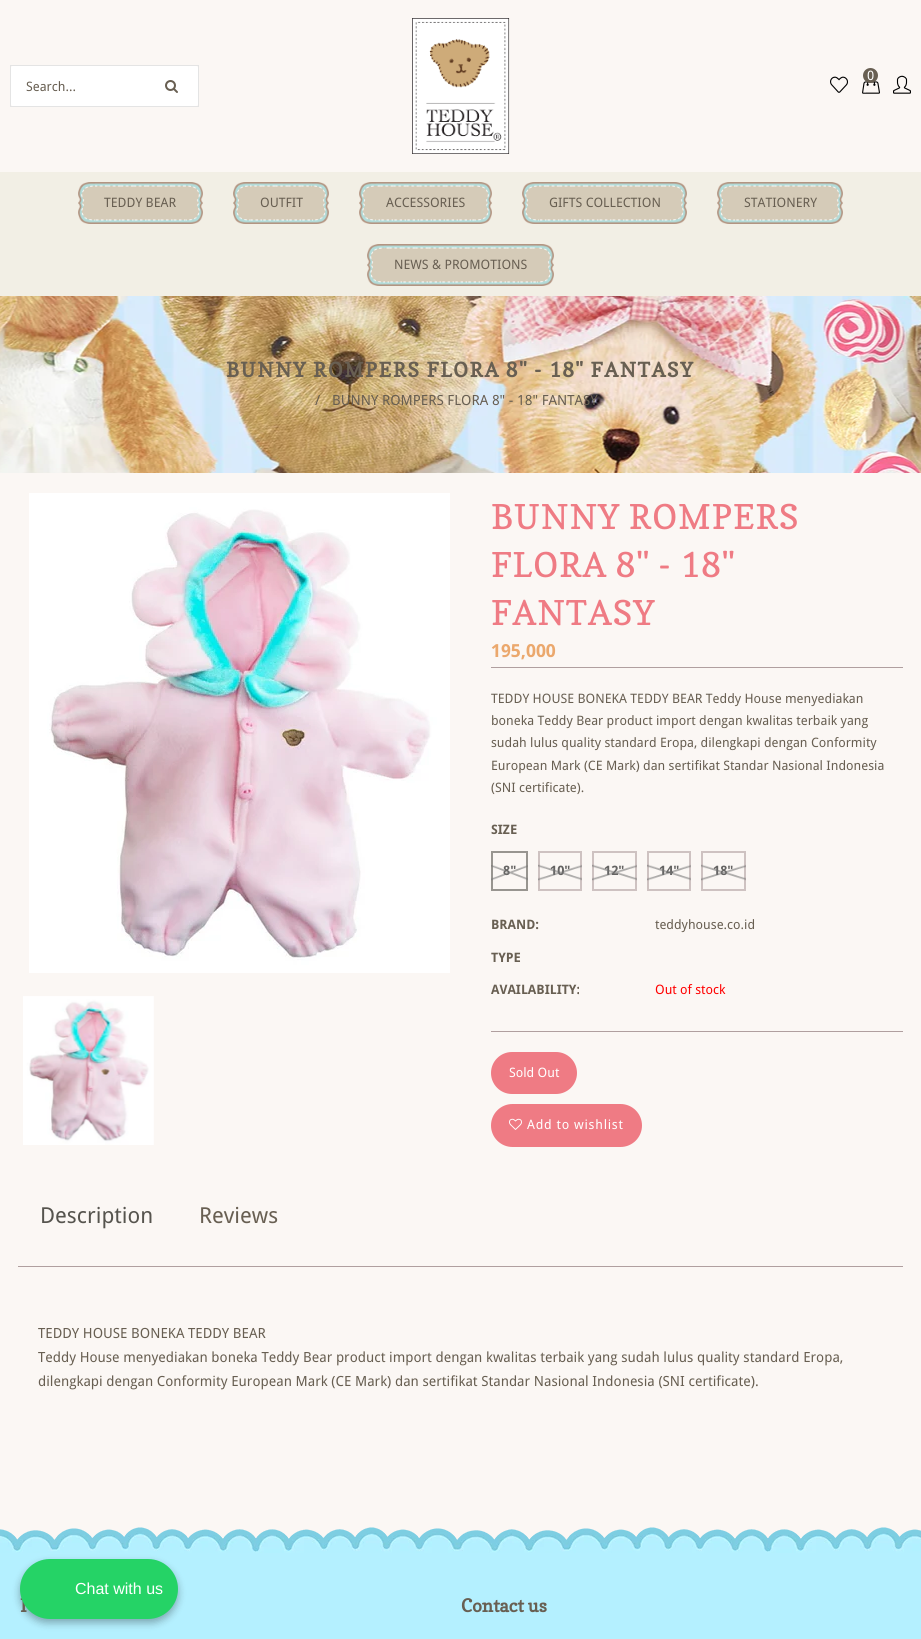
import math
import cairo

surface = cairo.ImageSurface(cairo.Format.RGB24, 921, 1639)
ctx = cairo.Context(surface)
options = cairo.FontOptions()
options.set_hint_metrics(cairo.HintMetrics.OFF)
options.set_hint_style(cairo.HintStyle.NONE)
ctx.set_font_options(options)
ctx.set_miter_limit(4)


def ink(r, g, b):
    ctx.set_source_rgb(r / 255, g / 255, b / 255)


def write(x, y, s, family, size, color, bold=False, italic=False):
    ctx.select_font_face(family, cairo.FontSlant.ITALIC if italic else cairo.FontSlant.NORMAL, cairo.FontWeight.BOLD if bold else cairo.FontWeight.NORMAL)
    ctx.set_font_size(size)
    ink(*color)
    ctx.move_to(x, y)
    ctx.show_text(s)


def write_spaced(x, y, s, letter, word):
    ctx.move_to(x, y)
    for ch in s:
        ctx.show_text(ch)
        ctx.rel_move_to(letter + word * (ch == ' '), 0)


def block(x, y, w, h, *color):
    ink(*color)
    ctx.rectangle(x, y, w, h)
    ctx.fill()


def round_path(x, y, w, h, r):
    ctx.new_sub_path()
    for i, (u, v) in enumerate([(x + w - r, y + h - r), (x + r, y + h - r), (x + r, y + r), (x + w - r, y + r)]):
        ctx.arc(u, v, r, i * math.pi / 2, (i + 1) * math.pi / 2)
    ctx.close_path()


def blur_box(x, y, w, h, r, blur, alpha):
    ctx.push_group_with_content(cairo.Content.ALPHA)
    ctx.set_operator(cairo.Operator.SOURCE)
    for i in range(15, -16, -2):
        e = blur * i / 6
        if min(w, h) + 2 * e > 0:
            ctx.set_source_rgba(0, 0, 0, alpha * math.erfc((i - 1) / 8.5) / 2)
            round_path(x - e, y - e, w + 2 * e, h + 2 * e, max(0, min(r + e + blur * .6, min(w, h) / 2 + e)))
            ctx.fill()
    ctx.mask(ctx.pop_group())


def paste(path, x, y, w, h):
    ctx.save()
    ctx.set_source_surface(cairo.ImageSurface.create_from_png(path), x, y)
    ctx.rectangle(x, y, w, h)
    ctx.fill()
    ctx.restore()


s1 = dict(family="Droid Sans", size=13, color=(255, 255, 255))
s2 = dict(family="Droid Sans", size=13, color=(104, 95, 82))
s3 = dict(family="Droid Sans", size=14, color=(104, 95, 82))
s4 = dict(family="Droid Sans", size=18, color=(235, 168, 109), bold=True)
s5 = dict(family="Droid Sans", size=13, color=(104, 95, 82), bold=True)
s6 = dict(family="Droid Sans", size=13, color=(100, 99, 98), bold=True)
s7 = dict(family="Droid Sans", size=13, color=(255, 0, 0))
s8 = dict(family="Droid Sans", size=22, color=(86, 84, 78))
s9 = dict(family="Droid Sans", size=22, color=(104, 95, 82))
s10 = dict(family="Copse", size=18, color=(104, 95, 82), bold=True)
s11 = dict(family="Liberation Sans", size=16, color=(255, 255, 255))

ink(251, 247, 244)
ctx.paint()
paste("pic1.png", 412, 18, 98, 136)
paste("pic2.png", 830, 76, 18, 17)
paste("pic3.png", 862, 81, 18, 13)
ink(104, 95, 82)
ctx.arc(870.5, 75.5, 7.5, 0, 2 * math.pi)
ctx.fill()
write(867, 80, "0", **s1)
paste("pic4.png", 893, 75, 18, 19)
ctx.rectangle(10.5, 65.5, 188, 41)
ink(228, 228, 228)
ctx.set_line_width(1)
ctx.stroke()
ink(255, 255, 255)
round_path(11, 66, 187, 40, 2)
ctx.fill()
write(26, 91, "Search...", **s2)
paste("pic5.png", 165, 80, 13, 13)
block(0, 172, 921, 124, 242, 239, 229)
paste("pic6.png", 94, 182, 92, 42)
paste("pic7.png", 78, 182, 17, 42)
write(104, 207, "TEDDY BEAR", **s2)
paste("pic8.png", 186, 182, 17, 42)
paste("pic9.png", 250, 182, 63, 42)
paste("pic10.png", 233, 182, 17, 42)
write(260, 207, "OUTFIT", **s2)
paste("pic11.png", 312, 182, 17, 42)
paste("pic12.png", 376, 182, 99, 42)
paste("pic13.png", 359, 182, 17, 42)
write(386, 207, "ACCESSORIES", **s2)
paste("pic8.png", 475, 182, 17, 42)
paste("pic14.png", 539, 182, 132, 42)
paste("pic13.png", 522, 182, 17, 42)
write(549, 207, "GIFTS COLLECTION", **s2)
paste("pic11.png", 670, 182, 17, 42)
paste("pic15.png", 734, 182, 93, 42)
paste("pic10.png", 717, 182, 17, 42)
write(744, 207, "STATIONERY", **s2)
paste("pic11.png", 826, 182, 17, 42)
paste("pic16.png", 384, 244, 153, 42)
paste("pic10.png", 367, 244, 17, 42)
write(394, 269, "NEWS & PROMOTIONS", **s2)
paste("pic17.png", 537, 244, 17, 42)
paste("pic18.png", 0, 296, 921, 177)
ctx.select_font_face("Copse", cairo.FontSlant.NORMAL, cairo.FontWeight.BOLD)
ctx.set_font_size(20)
write_spaced(226, 377, "BUNNY ROMPERS FLORA 8\" - 18\" FANTASY", 1.6, 0)
write(315, 405, "/", **s3)
write(332, 405, "BUNNY ROMPERS FLORA 8\" - 18\" FANTASY", **s3)
paste("pic19.png", 29, 493, 421, 480)
paste("pic20.png", 23, 996, 131, 149)
ctx.select_font_face("Copse")
ctx.set_font_size(34)
ink(239, 123, 132)
write_spaced(491, 529, "BUNNY ROMPERS", 1, 0)
write_spaced(491, 577, "FLORA 8\" - 18\"", 1, 0)
write_spaced(491, 625, "FANTASY", 1, 0)
write(491, 657, "195,000", **s4)
block(491, 667, 412, 1, 176, 159, 159)
write(491, 703, "TEDDY HOUSE BONEKA TEDDY BEAR Teddy House menyediakan", **s2)
write(491, 725, "boneka Teddy Bear product import dengan kwalitas terbaik yang", **s2)
write(491, 747, "sudah lulus quality standard Eropa, dilengkapi dengan Conformity", **s2)
write(491, 770, "European Mark (CE Mark) dan sertifikat Standar Nasional Indonesia", **s2)
write(491, 792, "(SNI certificate).", **s2)
write(491, 834, "SIZE", **s5)
ctx.rectangle(492, 852, 35, 38)
ink(152, 149, 144)
ctx.set_line_width(2)
ctx.stroke()
write(503, 875, "8\"", **s6)
paste("pic21.png", 491, 865, 37, 16)
ctx.rectangle(539, 852, 42, 38)
ink(206, 194, 193)
ctx.stroke()
write(550, 875, "10\"", **s6)
paste("pic22.png", 538, 864, 44, 17)
ctx.rectangle(593, 852, 43, 38)
ink(206, 194, 193)
ctx.stroke()
write(604, 875, "12\"", **s6)
paste("pic23.png", 592, 864, 45, 17)
ctx.rectangle(648, 852, 42, 38)
ink(206, 194, 193)
ctx.stroke()
write(659, 875, "14\"", **s6)
paste("pic24.png", 647, 864, 44, 17)
ctx.rectangle(702, 852, 43, 38)
ink(206, 194, 193)
ctx.stroke()
write(713, 875, "18\"", **s6)
paste("pic25.png", 701, 864, 45, 17)
block(491, 1031, 412, 1, 176, 159, 159)
write(491, 929, "BRAND:", **s5)
write(655, 929, "teddyhouse.co.id", **s2)
write(491, 962, "TYPE", **s5)
write(491, 994, "AVAILABILITY:", **s5)
write(655, 994, "Out of stock", **s7)
ink(239, 123, 132)
round_path(491, 1052, 86, 42, 21)
ctx.fill()
write(509, 1077, "Sold Out", **s1)
ink(239, 123, 132)
round_path(491, 1104, 151, 43, 21.5)
ctx.fill()
paste("pic26.png", 509, 1118, 13, 12)
ink(255, 255, 255)
write_spaced(527, 1129, "Add to wishlist", 0.75, 0)
write(40, 1223, "Description", **s8)
write(199, 1223, "Reviews", **s9)
block(18, 1266, 885, 1, 176, 159, 159)
write(38, 1338, "TEDDY HOUSE BONEKA TEDDY BEAR", **s3)
write(38, 1362, "Teddy House menyediakan boneka Teddy Bear product import dengan kwalitas terbaik yang sudah lulus quality standard Eropa,", **s3)
write(38, 1386, "dilengkapi dengan Conformity European Mark (CE Mark) dan sertifikat Standar Nasional Indonesia (SNI certificate).", **s3)
block(0, 1553, 921, 86, 180, 240, 255)
paste("pic27.png", 0, 1527, 921, 26)
ink(0, 0, 0)
blur_box(20, 1563, 158, 60, 30, 4, 0.3)
write(20, 1612, "I", **s10)
ink(37, 211, 102)
round_path(20, 1559, 158, 60, 30)
ctx.fill()
write(75, 1594, "Chat with us", **s11)
write(461, 1612, "Contact us", **s10)
surface.write_to_png("screenshot.png")
